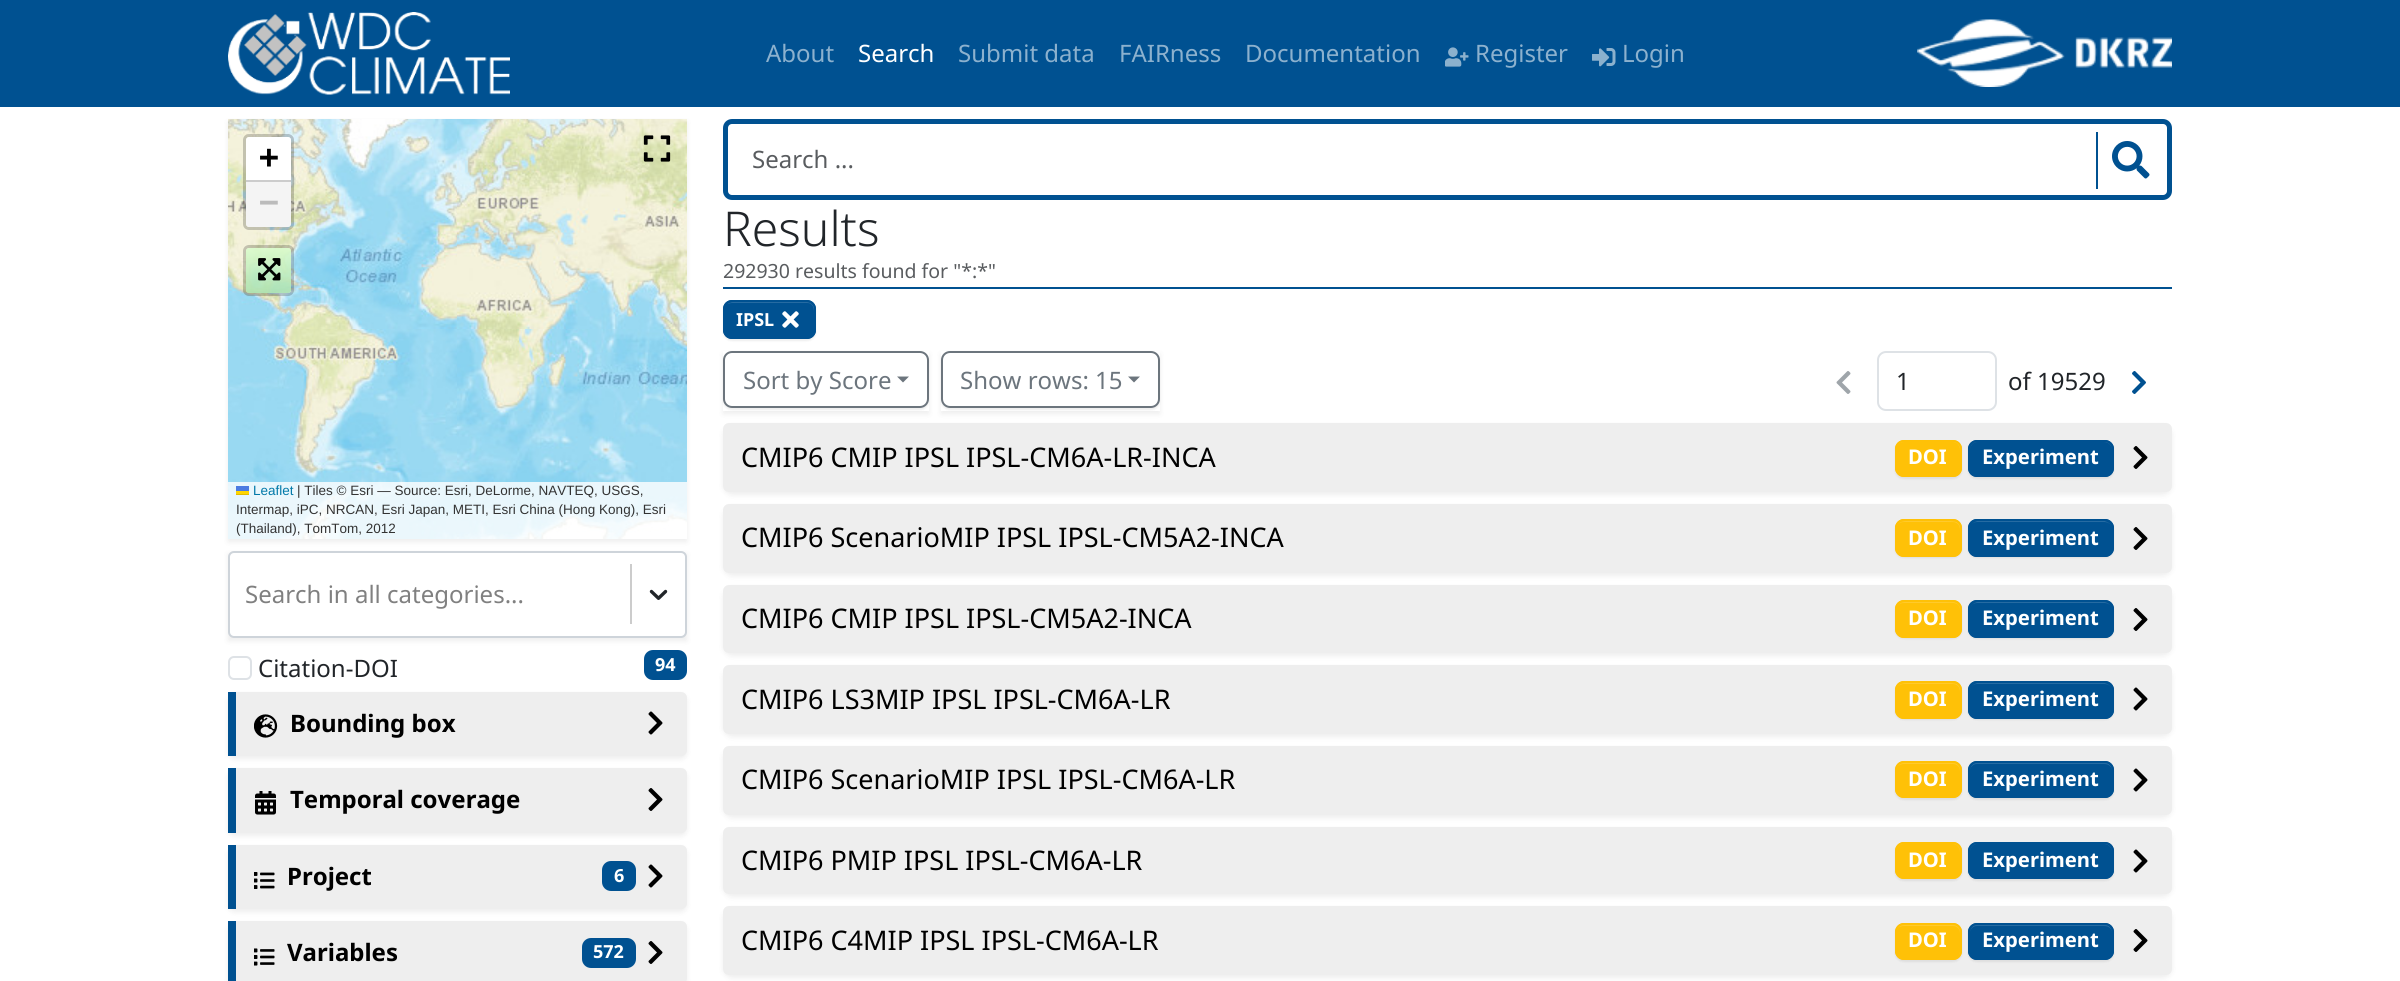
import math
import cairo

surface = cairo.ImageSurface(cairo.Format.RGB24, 2400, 981)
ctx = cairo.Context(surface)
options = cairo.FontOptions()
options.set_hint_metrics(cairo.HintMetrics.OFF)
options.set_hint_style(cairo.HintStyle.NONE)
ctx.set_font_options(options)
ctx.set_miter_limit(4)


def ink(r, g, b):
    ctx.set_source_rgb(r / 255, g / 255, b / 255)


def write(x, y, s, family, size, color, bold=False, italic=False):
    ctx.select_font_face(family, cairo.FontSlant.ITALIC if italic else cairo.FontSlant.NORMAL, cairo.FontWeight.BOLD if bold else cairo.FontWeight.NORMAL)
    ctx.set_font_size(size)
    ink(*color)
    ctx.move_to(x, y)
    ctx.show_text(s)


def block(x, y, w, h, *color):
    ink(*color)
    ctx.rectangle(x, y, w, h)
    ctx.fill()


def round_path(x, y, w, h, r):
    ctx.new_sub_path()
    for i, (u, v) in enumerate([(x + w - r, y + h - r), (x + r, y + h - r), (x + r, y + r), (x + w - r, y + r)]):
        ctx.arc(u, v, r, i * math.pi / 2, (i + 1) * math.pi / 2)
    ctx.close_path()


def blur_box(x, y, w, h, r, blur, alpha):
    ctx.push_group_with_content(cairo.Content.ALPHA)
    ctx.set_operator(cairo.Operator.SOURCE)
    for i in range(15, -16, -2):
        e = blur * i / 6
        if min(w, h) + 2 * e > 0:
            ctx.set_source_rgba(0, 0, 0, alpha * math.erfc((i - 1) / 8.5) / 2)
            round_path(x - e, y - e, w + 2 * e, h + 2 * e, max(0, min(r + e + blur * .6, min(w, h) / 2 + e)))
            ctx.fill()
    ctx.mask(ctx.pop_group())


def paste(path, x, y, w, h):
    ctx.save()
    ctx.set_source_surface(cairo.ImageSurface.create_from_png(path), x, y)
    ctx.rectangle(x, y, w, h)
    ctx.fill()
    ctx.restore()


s1 = dict(family="Noto Sans", size=24, color=(140, 177, 206))
s2 = dict(family="Noto Sans", size=24, color=(255, 255, 255))
s3 = dict(family="DejaVu Sans Mono", size=33, color=(0, 0, 0), bold=True)
s4 = dict(family="DejaVu Sans Mono", size=33, color=(187, 187, 187), bold=True)
s5 = dict(family="Liberation Sans", size=13.5, color=(0, 120, 168))
s6 = dict(family="Liberation Sans", size=13.5, color=(51, 51, 51))
s7 = dict(family="Noto Sans", size=24, color=(128, 128, 128))
s8 = dict(family="Noto Sans", size=24, color=(33, 37, 41))
s9 = dict(family="Noto Sans", size=18, color=(255, 255, 255), bold=True)
s10 = dict(family="Noto Sans", size=24, color=(0, 0, 0), bold=True)
s11 = dict(family="Noto Sans", size=24, color=(89, 92, 95))
s12 = dict(family="Noto Sans Light", size=48, color=(33, 37, 41))
s13 = dict(family="Noto Sans", size=19.5, color=(89, 92, 95))
s14 = dict(family="Noto Sans", size=24, color=(108, 117, 125))
s15 = dict(family="Noto Sans", size=27, color=(0, 0, 0))
s16 = dict(family="Noto Sans", size=20.25, color=(255, 255, 255), bold=True)

ink(255, 255, 255)
ctx.paint()
block(0, 0, 2400, 107, 0, 81, 145)
paste("pic1.png", 228, 12, 282, 83)
write(766, 62, "About", **s1)
write(858, 62, "Search", **s2)
write(958, 62, "Submit data", **s1)
write(1119, 62, "FAIRness", **s1)
write(1245, 62, "Documentation", **s1)
paste("pic2.png", 1445, 47, 24, 20)
write(1475, 62, "Register", **s1)
paste("pic3.png", 1592, 48, 24, 19)
write(1622, 62, "Login", **s1)
paste("pic4.png", 1917, 19, 255, 68)
ink(0, 0, 0)
blur_box(228, 122, 459, 420, 0, 3, 0.07)
paste("pic5.png", 228, 119, 229, 210)
paste("pic6.png", 457, 119, 230, 210)
paste("pic7.png", 228, 329, 229, 210)
paste("pic8.png", 457, 329, 230, 210)
round_path(244.5, 135.5, 48, 93, 4.5)
ctx.set_source_rgba(0, 0, 0, 0.2)
ctx.set_line_width(3)
ctx.stroke()
ink(255, 255, 255)
ctx.new_path()
ctx.move_to(249, 137)
ctx.line_to(288, 137)
ctx.curve_to(289.5, 137, 291, 138.5, 291, 140)
ctx.line_to(291, 182)
ctx.line_to(246, 182)
ctx.line_to(246, 140)
ctx.curve_to(246, 138.5, 247.5, 137, 249, 137)
ctx.close_path()
ctx.fill()
block(246, 180, 45, 2, 204, 204, 204)
write(259, 168, "+", **s3)
ink(244, 244, 244)
ctx.new_path()
ctx.move_to(246, 182)
ctx.line_to(291, 182)
ctx.line_to(291, 224)
ctx.curve_to(291, 225.5, 289.5, 227, 288, 227)
ctx.line_to(249, 227)
ctx.curve_to(247.5, 227, 246, 225.5, 246, 224)
ctx.close_path()
ctx.fill()
write(259, 213, "−", **s4)
round_path(244.5, 246.5, 48, 48, 4.5)
ctx.set_source_rgba(0, 0, 0, 0.2)
ctx.stroke()
gradient = cairo.LinearGradient(269, 248, 269, 293)
gradient.add_color_stop_rgba(0, 0.855, 0.988, 0.804, 0.9)
gradient.add_color_stop_rgba(1, 0.678, 0.886, 0.69, 0.9)
ctx.set_source(gradient)
round_path(246, 248, 45, 45, 3)
ctx.fill()
paste("pic9.png", 258, 258, 23, 23)
paste("pic10.png", 643, 135, 28, 27)
ctx.set_source_rgba(1, 1, 1, 0.8)
ctx.rectangle(228, 482, 459, 57)
ctx.fill()
write(253, 495, "Leaflet", **s5)
block(236, 486, 13, 5, 76, 123, 225)
block(236, 491, 13, 3, 255, 213, 0)
block(236, 494, 13, 1, 224, 188, 0)
write(297, 495, "| Tiles © Esri — Source: Esri, DeLorme, NAVTEQ, USGS,", **s6)
write(236, 514, "Intermap, iPC, NRCAN, Esri Japan, METI, Esri China (Hong Kong), Esri", **s6)
write(236, 533, "(Thailand), TomTom, 2012", **s6)
ink(0, 0, 0)
blur_box(228, 554, 459, 87, 0, 3, 0.07)
ink(255, 255, 255)
round_path(229, 552, 457, 85, 5)
ctx.fill_preserve()
ink(206, 212, 218)
ctx.set_line_width(2)
ctx.stroke()
write(245, 603, "Search in all categories...", **s7)
block(630, 564, 2, 60, 204, 204, 204)
paste("pic11.png", 649, 589, 19, 11)
round_path(229, 657, 22, 22, 5)
ink(222, 226, 230)
ctx.stroke()
write(258, 677, "Citation-DOI", **s8)
ink(0, 81, 145)
round_path(644, 650, 43, 30, 9)
ctx.fill()
write(655, 671, "94", **s9)
ink(0, 0, 0)
blur_box(228, 695, 459, 64, 6, 3, 0.07)
ink(238, 238, 238)
ctx.new_path()
ctx.move_to(228, 692)
ctx.line_to(681, 692)
ctx.curve_to(684.5, 692, 687, 694.5, 687, 698)
ctx.line_to(687, 750)
ctx.curve_to(687, 753.5, 684.5, 756, 681, 756)
ctx.line_to(228, 756)
ctx.close_path()
ctx.fill()
block(228, 692, 8, 64, 0, 81, 145)
paste("pic12.png", 254, 714, 24, 24)
write(290, 732, "Bounding box", **s10)
paste("pic13.png", 648, 711, 15, 24)
ink(0, 0, 0)
blur_box(228, 771, 459, 65, 6, 3, 0.07)
ink(238, 238, 238)
ctx.new_path()
ctx.move_to(228, 768)
ctx.line_to(681, 768)
ctx.curve_to(684.5, 768, 687, 770.5, 687, 774)
ctx.line_to(687, 827)
ctx.curve_to(687, 830.5, 684.5, 833, 681, 833)
ctx.line_to(228, 833)
ctx.close_path()
ctx.fill()
block(228, 768, 8, 65, 0, 81, 145)
paste("pic14.png", 255, 791, 21, 24)
write(290, 808, "Temporal coverage", **s10)
paste("pic15.png", 648, 788, 15, 23)
ink(0, 0, 0)
blur_box(228, 848, 459, 64, 6, 3, 0.07)
ink(238, 238, 238)
ctx.new_path()
ctx.move_to(228, 845)
ctx.line_to(681, 845)
ctx.curve_to(684.5, 845, 687, 847.5, 687, 851)
ctx.line_to(687, 903)
ctx.curve_to(687, 906.5, 684.5, 909, 681, 909)
ctx.line_to(228, 909)
ctx.close_path()
ctx.fill()
block(228, 845, 8, 64, 0, 81, 145)
paste("pic16.png", 254, 872, 21, 17)
write(287, 885, "Project", **s10)
ink(0, 81, 145)
round_path(602, 861, 34, 30, 9)
ctx.fill()
write(614, 882, "6", **s9)
paste("pic13.png", 648, 864, 15, 24)
ink(0, 0, 0)
blur_box(228, 924, 459, 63, 6, 3, 0.07)
ink(238, 238, 238)
ctx.new_path()
ctx.move_to(228, 921)
ctx.line_to(681, 921)
ctx.curve_to(684.5, 921, 687, 923.5, 687, 927)
ctx.line_to(687, 978)
ctx.curve_to(687, 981.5, 684.5, 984, 681, 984)
ctx.line_to(228, 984)
ctx.close_path()
ctx.fill()
block(228, 921, 8, 60, 0, 81, 145)
paste("pic17.png", 254, 948, 21, 18)
write(287, 961, "Variables", **s10)
ink(0, 81, 145)
round_path(582, 938, 54, 30, 9)
ctx.fill()
write(593, 958, "572", **s9)
paste("pic15.png", 648, 941, 15, 23)
round_path(725.5, 121.5, 1444, 76, 6.5)
ink(0, 81, 145)
ctx.set_line_width(5)
ctx.stroke()
write(752, 168, "Search ...", **s11)
block(2096, 132, 2, 57, 0, 81, 145)
paste("pic18.png", 2112, 141, 38, 38)
block(723, 287, 1449, 2, 0, 81, 145)
write(723, 246, "Results", **s12)
write(723, 278, "292930 results found for \"*:*\"", **s13)
ink(0, 0, 0)
blur_box(723, 302, 93, 39, 9, 1, 0.07)
ink(0, 81, 145)
round_path(723, 300, 93, 39, 9)
ctx.fill()
ink(38, 107, 162)
ctx.new_path()
ctx.move_to(732, 303)
ctx.line_to(807, 303)
ctx.curve_to(815, 303, 814, 312, 814, 317)
ctx.line_to(814, 335)
ctx.curve_to(814, 333, 815, 332, 815, 330)
ctx.line_to(815, 310)
ctx.curve_to(815, 306, 811, 302, 807, 302)
ctx.line_to(733, 302)
ctx.curve_to(731, 302, 729, 303, 727, 304)
ctx.curve_to(729, 304, 730, 303, 732, 303)
ctx.close_path()
ctx.fill()
round_path(724, 301, 91, 37, 8)
ink(0, 81, 145)
ctx.set_line_width(2)
ctx.stroke()
write(736, 326, "IPSL", **s9)
paste("pic19.png", 782, 311, 17, 17)
ctx.save()
ctx.set_fill_rule(cairo.FillRule.EVEN_ODD)
ctx.new_path()
ctx.move_to(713, 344)
ctx.line_to(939, 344)
ctx.line_to(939, 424)
ctx.line_to(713, 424)
ctx.close_path()
ctx.move_to(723, 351)
ctx.line_to(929, 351)
ctx.line_to(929, 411)
ctx.line_to(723, 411)
ctx.close_path()
ctx.clip()
ink(0, 0, 0)
blur_box(723, 354, 206, 60, 0, 3, 0.07)
ctx.restore()
ctx.save()
ctx.set_fill_rule(cairo.FillRule.EVEN_ODD)
ctx.new_path()
ctx.move_to(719, 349)
ctx.line_to(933, 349)
ctx.line_to(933, 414)
ctx.line_to(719, 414)
ctx.close_path()
ctx.move_to(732, 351)
ctx.line_to(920, 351)
ctx.curve_to(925, 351, 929, 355, 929, 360)
ctx.line_to(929, 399)
ctx.curve_to(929, 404, 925, 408, 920, 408)
ctx.line_to(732, 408)
ctx.curve_to(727, 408, 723, 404, 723, 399)
ctx.line_to(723, 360)
ctx.curve_to(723, 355, 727, 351, 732, 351)
ctx.close_path()
ctx.clip()
ink(0, 0, 0)
blur_box(723, 353, 206, 57, 9, 1, 0.07)
ctx.restore()
round_path(724, 352, 204, 55, 8)
ink(108, 117, 125)
ctx.stroke()
write(743, 389, "Sort by Score", **s14)
ctx.new_path()
ctx.move_to(897, 376.5)
ctx.line_to(909, 376.5)
ctx.line_to(903, 382.5)
ctx.close_path()
ctx.fill()
ctx.save()
ctx.set_fill_rule(cairo.FillRule.EVEN_ODD)
ctx.new_path()
ctx.move_to(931, 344)
ctx.line_to(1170, 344)
ctx.line_to(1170, 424)
ctx.line_to(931, 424)
ctx.close_path()
ctx.move_to(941, 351)
ctx.line_to(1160, 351)
ctx.line_to(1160, 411)
ctx.line_to(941, 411)
ctx.close_path()
ctx.clip()
ink(0, 0, 0)
blur_box(941, 354, 219, 60, 0, 3, 0.07)
ctx.restore()
ctx.save()
ctx.set_fill_rule(cairo.FillRule.EVEN_ODD)
ctx.new_path()
ctx.move_to(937, 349)
ctx.line_to(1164, 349)
ctx.line_to(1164, 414)
ctx.line_to(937, 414)
ctx.close_path()
ctx.move_to(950, 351)
ctx.line_to(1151, 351)
ctx.curve_to(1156, 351, 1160, 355, 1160, 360)
ctx.line_to(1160, 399)
ctx.curve_to(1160, 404, 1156, 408, 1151, 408)
ctx.line_to(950, 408)
ctx.curve_to(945, 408, 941, 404, 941, 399)
ctx.line_to(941, 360)
ctx.curve_to(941, 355, 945, 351, 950, 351)
ctx.close_path()
ctx.clip()
ink(0, 0, 0)
blur_box(941, 353, 219, 57, 9, 1, 0.07)
ctx.restore()
round_path(942, 352, 217, 55, 8)
ctx.stroke()
write(960, 389, "Show rows: 15", **s14)
ctx.new_path()
ctx.move_to(1128, 376.5)
ctx.line_to(1140, 376.5)
ctx.line_to(1134, 382.5)
ctx.close_path()
ctx.fill()
paste("pic20.png", 1836, 371, 15, 23)
round_path(1878, 352, 118, 58, 8)
ink(222, 226, 230)
ctx.stroke()
write(1896, 390, "1", **s8)
write(2008, 390, "of 19529", **s8)
paste("pic21.png", 2132, 371, 14, 23)
ink(0, 0, 0)
blur_box(723, 426, 1449, 69, 9, 3, 0.07)
ink(238, 238, 238)
round_path(723, 423, 1449, 69, 6)
ctx.fill()
write(741, 467, "CMIP6 CMIP IPSL IPSL-CM6A-LR-INCA", **s15)
ink(0, 0, 0)
blur_box(1895, 441, 67, 38, 9, 1, 0.07)
ink(255, 193, 7)
round_path(1895, 440, 67, 37, 9)
ctx.fill()
ink(255, 202, 44)
ctx.new_path()
ctx.move_to(1904, 442)
ctx.line_to(1953, 442)
ctx.curve_to(1957, 442, 1960, 446, 1960, 450)
ctx.line_to(1960, 470)
ctx.line_to(1960, 473)
ctx.curve_to(1960, 471, 1961, 470, 1961, 468)
ctx.line_to(1961, 449)
ctx.curve_to(1961, 445, 1957, 441, 1953, 441)
ctx.line_to(1904, 441)
ctx.curve_to(1900, 441, 1896, 445, 1896, 449)
ctx.line_to(1896, 450)
ctx.curve_to(1896, 446, 1899, 442, 1904, 442)
ctx.close_path()
ctx.fill()
round_path(1896, 441, 65, 35, 8)
ink(255, 193, 7)
ctx.stroke()
write(1908, 464, "DOI", **s16)
ink(0, 0, 0)
blur_box(1968, 441, 146, 38, 9, 1, 0.07)
ink(0, 81, 145)
round_path(1968, 440, 146, 37, 9)
ctx.fill()
ink(38, 107, 162)
ctx.new_path()
ctx.move_to(1977, 442)
ctx.line_to(2104, 442)
ctx.curve_to(2109, 442, 2112, 446, 2112, 450)
ctx.curve_to(2112, 436, 2090, 441, 2083, 441)
ctx.line_to(1999, 441)
ctx.curve_to(1992, 441, 1970, 436, 1970, 450)
ctx.curve_to(1970, 446, 1973, 442, 1977, 442)
ctx.close_path()
ctx.fill()
round_path(1969, 441, 144, 35, 8)
ink(0, 81, 145)
ctx.stroke()
write(1982, 464, "Experiment", **s16)
paste("pic15.png", 2133, 446, 15, 23)
ink(0, 0, 0)
blur_box(723, 507, 1449, 69, 9, 3, 0.07)
ink(238, 238, 238)
round_path(723, 504, 1449, 69, 6)
ctx.fill()
write(741, 547, "CMIP6 ScenarioMIP IPSL IPSL-CM5A2-INCA", **s15)
ink(0, 0, 0)
blur_box(1895, 521, 67, 37, 9, 1, 0.07)
ink(255, 193, 7)
round_path(1895, 519, 67, 38, 9)
ctx.fill()
ink(255, 202, 44)
ctx.new_path()
ctx.move_to(1904, 522)
ctx.line_to(1953, 522)
ctx.curve_to(1957, 522, 1960, 525, 1960, 530)
ctx.line_to(1960, 549)
ctx.line_to(1960, 552)
ctx.curve_to(1962, 548, 1961, 542, 1961, 538)
ctx.curve_to(1961, 522, 1961, 521, 1945, 521)
ctx.line_to(1912, 521)
ctx.curve_to(1905, 521, 1896, 520, 1896, 530)
ctx.curve_to(1896, 525, 1899, 522, 1904, 522)
ctx.close_path()
ctx.fill()
round_path(1896, 520, 65, 36, 8)
ink(255, 193, 7)
ctx.stroke()
write(1908, 545, "DOI", **s16)
ink(0, 0, 0)
blur_box(1968, 521, 146, 37, 9, 1, 0.07)
ink(0, 81, 145)
round_path(1968, 519, 146, 38, 9)
ctx.fill()
ink(38, 107, 162)
ctx.new_path()
ctx.move_to(1977, 522)
ctx.line_to(2104, 522)
ctx.curve_to(2109, 522, 2112, 525, 2112, 530)
ctx.curve_to(2112, 516, 2090, 521, 2083, 521)
ctx.line_to(1999, 521)
ctx.curve_to(1992, 521, 1970, 516, 1970, 530)
ctx.curve_to(1970, 525, 1973, 522, 1977, 522)
ctx.close_path()
ctx.fill()
round_path(1969, 520, 144, 36, 8)
ink(0, 81, 145)
ctx.stroke()
write(1982, 545, "Experiment", **s16)
paste("pic15.png", 2133, 527, 15, 23)
ink(0, 0, 0)
blur_box(723, 588, 1449, 68, 9, 3, 0.07)
ink(238, 238, 238)
round_path(723, 585, 1449, 68, 6)
ctx.fill()
write(741, 628, "CMIP6 CMIP IPSL IPSL-CM5A2-INCA", **s15)
ink(0, 0, 0)
blur_box(1895, 602, 67, 37, 9, 1, 0.07)
ink(255, 193, 7)
round_path(1895, 600, 67, 38, 9)
ctx.fill()
ink(255, 202, 44)
ctx.new_path()
ctx.move_to(1904, 603)
ctx.line_to(1945, 603)
ctx.curve_to(1950, 603, 1959, 601, 1960, 609)
ctx.line_to(1960, 632)
ctx.curve_to(1960, 631, 1961, 630, 1961, 628)
ctx.line_to(1961, 610)
ctx.curve_to(1961, 606, 1957, 602, 1953, 602)
ctx.line_to(1904, 602)
ctx.curve_to(1900, 602, 1896, 606, 1896, 610)
ctx.curve_to(1896, 606, 1899, 603, 1904, 603)
ctx.close_path()
ctx.fill()
round_path(1896, 601, 65, 36, 8)
ink(255, 193, 7)
ctx.stroke()
write(1908, 625, "DOI", **s16)
ink(0, 0, 0)
blur_box(1968, 602, 146, 37, 9, 1, 0.07)
ink(0, 81, 145)
round_path(1968, 600, 146, 38, 9)
ctx.fill()
ink(38, 107, 162)
ctx.new_path()
ctx.move_to(1977, 603)
ctx.line_to(2104, 603)
ctx.curve_to(2109, 603, 2112, 606, 2112, 610)
ctx.curve_to(2112, 606, 2108, 602, 2104, 602)
ctx.line_to(1978, 602)
ctx.curve_to(1974, 602, 1970, 606, 1970, 610)
ctx.curve_to(1970, 606, 1973, 603, 1977, 603)
ctx.close_path()
ctx.fill()
round_path(1969, 601, 144, 36, 8)
ink(0, 81, 145)
ctx.stroke()
write(1982, 625, "Experiment", **s16)
paste("pic15.png", 2133, 608, 15, 23)
ink(0, 0, 0)
blur_box(723, 668, 1449, 69, 9, 3, 0.07)
ink(238, 238, 238)
round_path(723, 665, 1449, 69, 6)
ctx.fill()
write(741, 709, "CMIP6 LS3MIP IPSL IPSL-CM6A-LR", **s15)
ink(0, 0, 0)
blur_box(1895, 683, 67, 37, 9, 1, 0.07)
ink(255, 193, 7)
round_path(1895, 681, 67, 38, 9)
ctx.fill()
ink(255, 202, 44)
ctx.new_path()
ctx.move_to(1904, 684)
ctx.line_to(1953, 684)
ctx.curve_to(1957, 684, 1960, 687, 1960, 692)
ctx.line_to(1960, 711)
ctx.line_to(1960, 714)
ctx.curve_to(1962, 710, 1961, 704, 1961, 700)
ctx.curve_to(1961, 684, 1961, 683, 1945, 683)
ctx.line_to(1912, 683)
ctx.curve_to(1905, 683, 1896, 682, 1896, 692)
ctx.curve_to(1896, 687, 1899, 684, 1904, 684)
ctx.close_path()
ctx.fill()
round_path(1896, 682, 65, 36, 8)
ink(255, 193, 7)
ctx.stroke()
write(1908, 706, "DOI", **s16)
ink(0, 0, 0)
blur_box(1968, 683, 146, 37, 9, 1, 0.07)
ink(0, 81, 145)
round_path(1968, 681, 146, 38, 9)
ctx.fill()
ink(38, 107, 162)
ctx.new_path()
ctx.move_to(1977, 684)
ctx.line_to(2104, 684)
ctx.curve_to(2109, 684, 2112, 687, 2112, 692)
ctx.curve_to(2112, 678, 2090, 683, 2083, 683)
ctx.line_to(1999, 683)
ctx.curve_to(1992, 683, 1970, 678, 1970, 692)
ctx.curve_to(1970, 687, 1973, 684, 1977, 684)
ctx.close_path()
ctx.fill()
round_path(1969, 682, 144, 36, 8)
ink(0, 81, 145)
ctx.stroke()
write(1982, 706, "Experiment", **s16)
paste("pic13.png", 2133, 687, 15, 24)
ink(0, 0, 0)
blur_box(723, 749, 1449, 69, 9, 3, 0.07)
ink(238, 238, 238)
round_path(723, 746, 1449, 69, 6)
ctx.fill()
write(741, 789, "CMIP6 ScenarioMIP IPSL IPSL-CM6A-LR", **s15)
ink(0, 0, 0)
blur_box(1895, 762, 67, 38, 9, 1, 0.07)
ink(255, 193, 7)
round_path(1895, 761, 67, 37, 9)
ctx.fill()
ink(255, 202, 44)
ctx.new_path()
ctx.move_to(1904, 764)
ctx.line_to(1953, 764)
ctx.curve_to(1957, 764, 1960, 767, 1960, 771)
ctx.line_to(1960, 790)
ctx.line_to(1959, 794)
ctx.curve_to(1960, 793, 1961, 791, 1961, 789)
ctx.line_to(1961, 770)
ctx.curve_to(1961, 766, 1957, 762, 1953, 762)
ctx.line_to(1904, 762)
ctx.curve_to(1900, 762, 1896, 766, 1896, 770)
ctx.line_to(1896, 771)
ctx.curve_to(1896, 767, 1899, 764, 1904, 764)
ctx.close_path()
ctx.fill()
round_path(1896, 762, 65, 35, 8)
ink(255, 193, 7)
ctx.stroke()
write(1908, 786, "DOI", **s16)
ink(0, 0, 0)
blur_box(1968, 762, 146, 38, 9, 1, 0.07)
ink(0, 81, 145)
round_path(1968, 761, 146, 37, 9)
ctx.fill()
ink(38, 107, 162)
ctx.new_path()
ctx.move_to(1977, 764)
ctx.line_to(2104, 764)
ctx.curve_to(2109, 764, 2112, 767, 2112, 771)
ctx.curve_to(2112, 757, 2090, 762, 2083, 762)
ctx.line_to(1999, 762)
ctx.curve_to(1992, 762, 1970, 757, 1970, 771)
ctx.curve_to(1970, 767, 1973, 764, 1977, 764)
ctx.close_path()
ctx.fill()
round_path(1969, 762, 144, 35, 8)
ink(0, 81, 145)
ctx.stroke()
write(1982, 786, "Experiment", **s16)
paste("pic13.png", 2133, 768, 15, 24)
ink(0, 0, 0)
blur_box(723, 830, 1449, 67, 9, 3, 0.07)
ink(238, 238, 238)
round_path(723, 827, 1449, 67, 6)
ctx.fill()
write(741, 870, "CMIP6 PMIP IPSL IPSL-CM6A-LR", **s15)
ink(0, 0, 0)
blur_box(1895, 843, 67, 38, 9, 1, 0.07)
ink(255, 193, 7)
round_path(1895, 842, 67, 37, 9)
ctx.fill()
ink(255, 202, 44)
ctx.new_path()
ctx.move_to(1904, 844)
ctx.line_to(1953, 844)
ctx.curve_to(1957, 844, 1960, 848, 1960, 852)
ctx.line_to(1960, 872)
ctx.line_to(1960, 875)
ctx.curve_to(1960, 873, 1961, 872, 1961, 870)
ctx.line_to(1961, 851)
ctx.curve_to(1961, 847, 1957, 843, 1953, 843)
ctx.line_to(1904, 843)
ctx.curve_to(1900, 843, 1896, 847, 1896, 851)
ctx.line_to(1896, 852)
ctx.curve_to(1896, 848, 1899, 844, 1904, 844)
ctx.close_path()
ctx.fill()
round_path(1896, 843, 65, 35, 8)
ink(255, 193, 7)
ctx.stroke()
write(1908, 867, "DOI", **s16)
ink(0, 0, 0)
blur_box(1968, 843, 146, 38, 9, 1, 0.07)
ink(0, 81, 145)
round_path(1968, 842, 146, 37, 9)
ctx.fill()
ink(38, 107, 162)
ctx.new_path()
ctx.move_to(1977, 844)
ctx.line_to(2104, 844)
ctx.curve_to(2109, 844, 2112, 848, 2112, 852)
ctx.curve_to(2112, 838, 2090, 843, 2083, 843)
ctx.line_to(1999, 843)
ctx.curve_to(1992, 843, 1970, 838, 1970, 852)
ctx.curve_to(1970, 848, 1973, 844, 1977, 844)
ctx.close_path()
ctx.fill()
round_path(1969, 843, 144, 35, 8)
ink(0, 81, 145)
ctx.stroke()
write(1982, 867, "Experiment", **s16)
paste("pic13.png", 2133, 849, 15, 24)
ink(0, 0, 0)
blur_box(723, 909, 1449, 69, 9, 3, 0.07)
ink(238, 238, 238)
round_path(723, 906, 1449, 69, 6)
ctx.fill()
write(741, 950, "CMIP6 C4MIP IPSL IPSL-CM6A-LR", **s15)
ink(0, 0, 0)
blur_box(1895, 924, 67, 38, 9, 1, 0.07)
ink(255, 193, 7)
round_path(1895, 923, 67, 37, 9)
ctx.fill()
ink(255, 202, 44)
ctx.new_path()
ctx.move_to(1904, 926)
ctx.line_to(1953, 926)
ctx.curve_to(1957, 926, 1960, 929, 1960, 933)
ctx.line_to(1960, 952)
ctx.line_to(1959, 956)
ctx.curve_to(1960, 955, 1961, 953, 1961, 951)
ctx.line_to(1961, 932)
ctx.curve_to(1961, 928, 1957, 924, 1953, 924)
ctx.line_to(1904, 924)
ctx.curve_to(1900, 924, 1896, 928, 1896, 932)
ctx.line_to(1896, 933)
ctx.curve_to(1896, 929, 1899, 926, 1904, 926)
ctx.close_path()
ctx.fill()
round_path(1896, 924, 65, 35, 8)
ink(255, 193, 7)
ctx.stroke()
write(1908, 947, "DOI", **s16)
ink(0, 0, 0)
blur_box(1968, 924, 146, 38, 9, 1, 0.07)
ink(0, 81, 145)
round_path(1968, 923, 146, 37, 9)
ctx.fill()
ink(38, 107, 162)
ctx.new_path()
ctx.move_to(1977, 926)
ctx.line_to(2104, 926)
ctx.curve_to(2109, 926, 2112, 929, 2112, 933)
ctx.curve_to(2112, 919, 2090, 924, 2083, 924)
ctx.line_to(1999, 924)
ctx.curve_to(1992, 924, 1970, 919, 1970, 933)
ctx.curve_to(1970, 929, 1973, 926, 1977, 926)
ctx.close_path()
ctx.fill()
round_path(1969, 924, 144, 35, 8)
ink(0, 81, 145)
ctx.stroke()
write(1982, 947, "Experiment", **s16)
paste("pic15.png", 2133, 929, 15, 23)
surface.write_to_png("screenshot.png")
